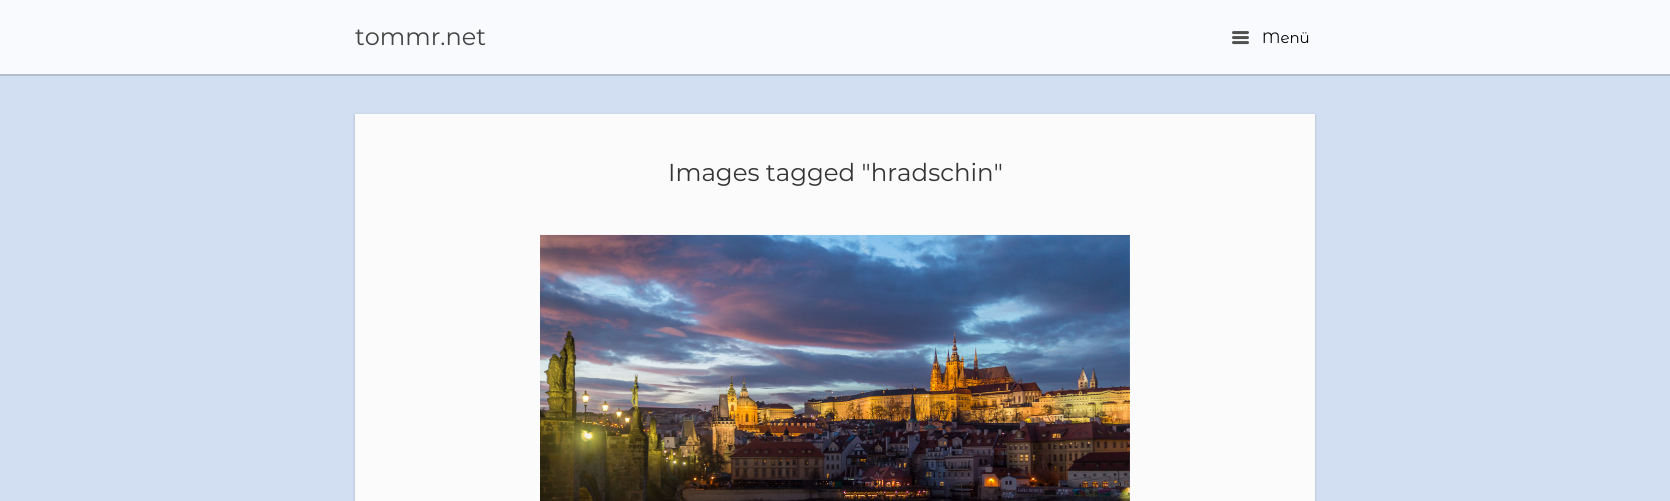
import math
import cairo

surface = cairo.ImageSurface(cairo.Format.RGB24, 1670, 501)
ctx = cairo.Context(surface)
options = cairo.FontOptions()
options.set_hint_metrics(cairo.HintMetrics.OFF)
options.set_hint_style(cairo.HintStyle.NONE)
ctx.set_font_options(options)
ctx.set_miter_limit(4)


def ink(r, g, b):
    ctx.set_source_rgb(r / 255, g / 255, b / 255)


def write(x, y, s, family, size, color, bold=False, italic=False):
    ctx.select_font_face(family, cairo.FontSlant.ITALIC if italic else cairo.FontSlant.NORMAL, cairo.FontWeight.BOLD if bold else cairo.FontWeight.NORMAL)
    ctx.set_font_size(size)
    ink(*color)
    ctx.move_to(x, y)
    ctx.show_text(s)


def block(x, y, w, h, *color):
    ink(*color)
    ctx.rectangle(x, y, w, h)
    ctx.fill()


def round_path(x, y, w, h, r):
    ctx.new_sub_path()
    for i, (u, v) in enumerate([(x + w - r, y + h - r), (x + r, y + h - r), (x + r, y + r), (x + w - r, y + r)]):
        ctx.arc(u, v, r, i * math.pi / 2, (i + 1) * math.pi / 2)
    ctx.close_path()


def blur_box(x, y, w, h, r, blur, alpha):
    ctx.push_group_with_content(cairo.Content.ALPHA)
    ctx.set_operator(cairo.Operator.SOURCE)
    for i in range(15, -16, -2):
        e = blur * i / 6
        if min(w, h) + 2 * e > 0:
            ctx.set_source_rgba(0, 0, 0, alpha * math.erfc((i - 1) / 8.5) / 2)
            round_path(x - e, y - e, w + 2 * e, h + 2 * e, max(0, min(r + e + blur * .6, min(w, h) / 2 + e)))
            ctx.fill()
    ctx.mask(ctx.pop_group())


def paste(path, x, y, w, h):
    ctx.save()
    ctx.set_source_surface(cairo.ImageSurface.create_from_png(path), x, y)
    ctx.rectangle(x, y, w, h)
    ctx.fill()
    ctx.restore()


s1 = dict(family="Montserrat Thin", size=24, color=(68, 68, 68))
s2 = dict(family="Montserrat Alternates", size=15, color=(0, 0, 0))
s3 = dict(family="Montserrat Thin", size=24.5, color=(55, 52, 53))

ink(210, 222, 242)
ctx.paint()
block(0, 74, 1670, 2, 179, 189, 206)
block(0, 0, 1670, 74, 249, 250, 253)
write(355, 45, "tommr.net", **s1)
paste("pic1.png", 1232, 31, 17, 14)
write(1262, 43, "Menü", **s2)
ink(0, 0, 0)
blur_box(355, 115, 960, 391, 0, 1.5, 0.18)
block(355, 114, 960, 387, 251, 251, 251)
write(668, 181, "Images tagged \"hradschin\"", **s3)
paste("pic2.png", 540, 234, 590, 267)
surface.write_to_png("screenshot.png")
